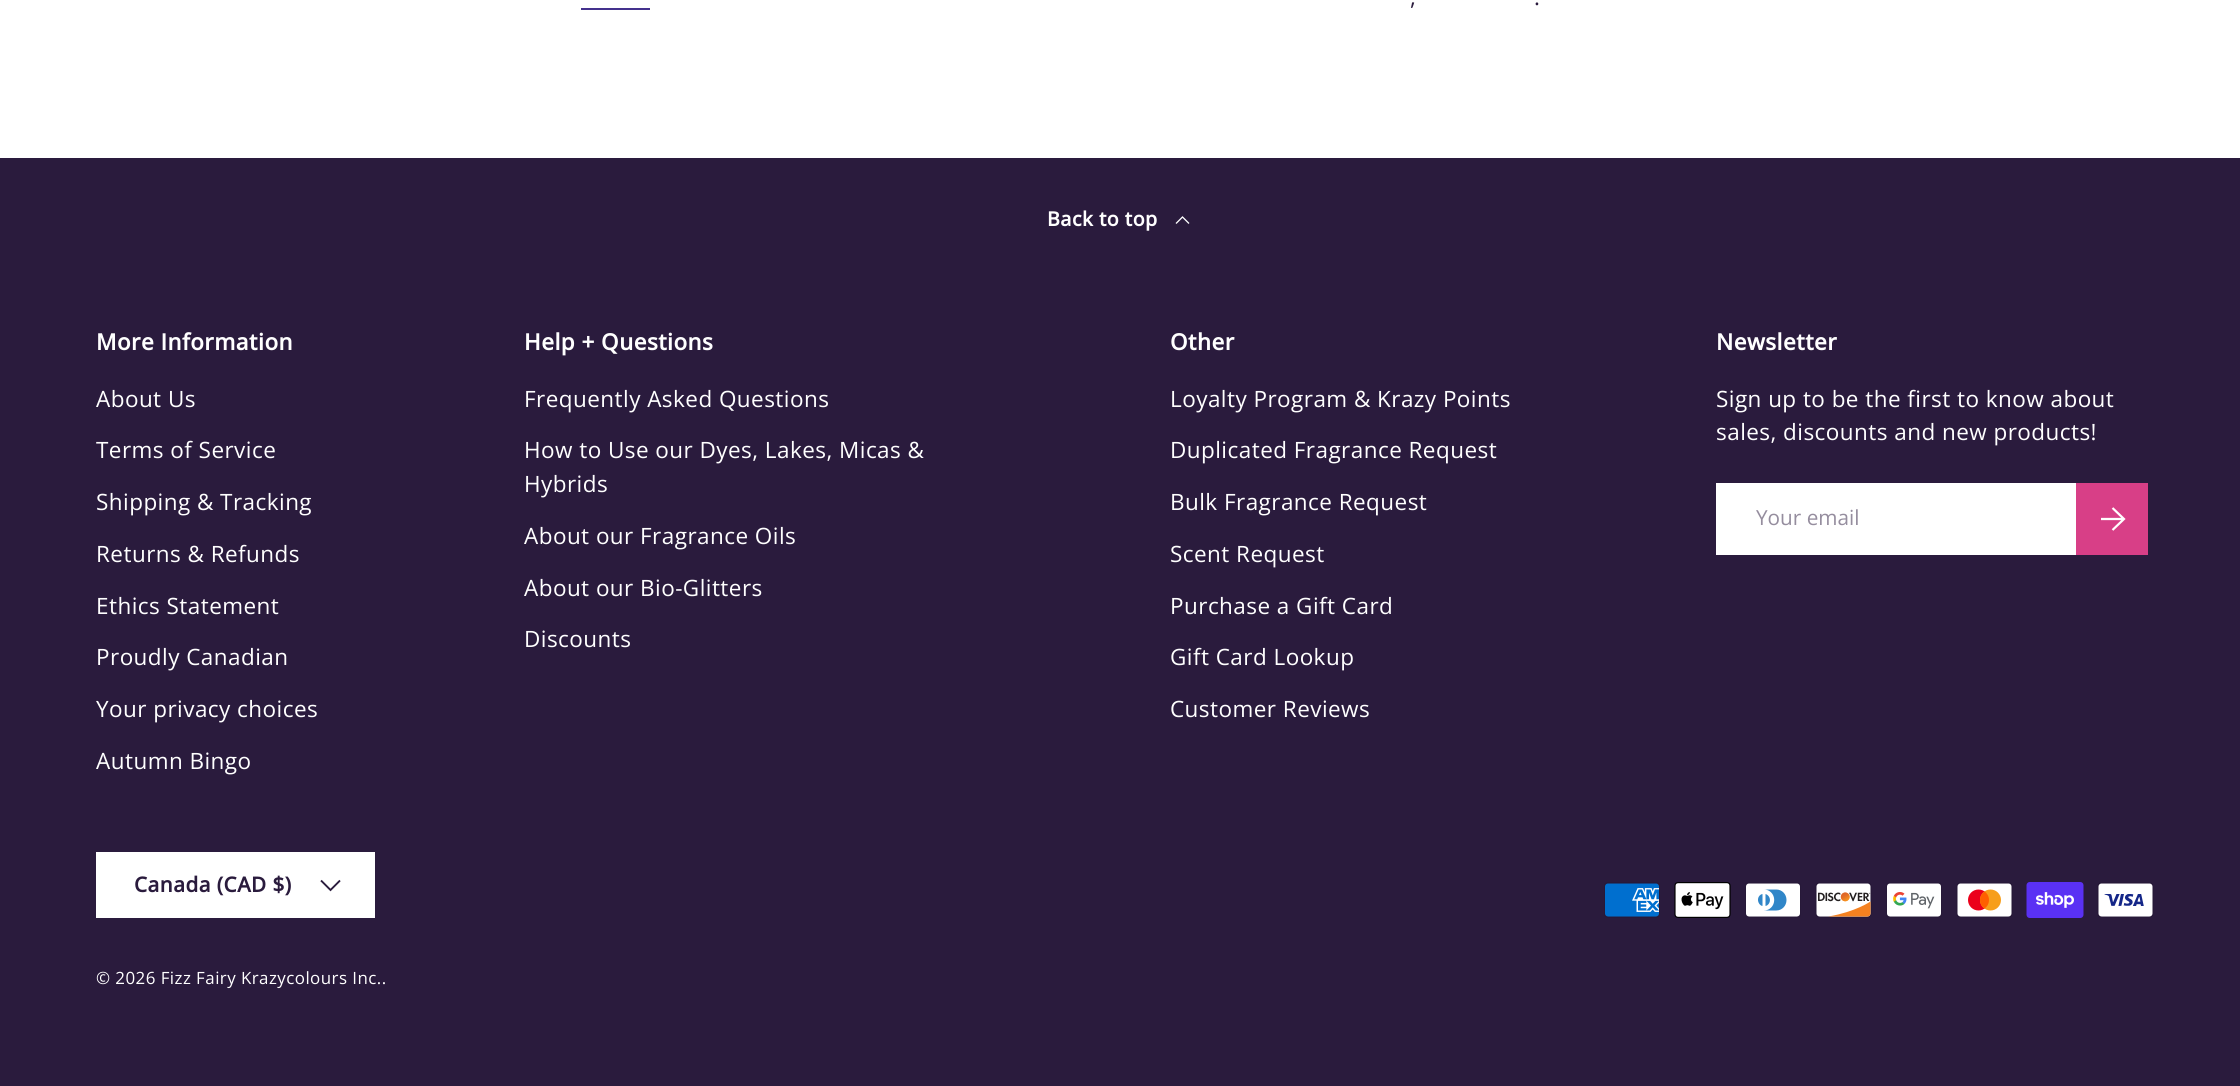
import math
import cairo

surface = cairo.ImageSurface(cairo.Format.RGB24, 2240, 1086)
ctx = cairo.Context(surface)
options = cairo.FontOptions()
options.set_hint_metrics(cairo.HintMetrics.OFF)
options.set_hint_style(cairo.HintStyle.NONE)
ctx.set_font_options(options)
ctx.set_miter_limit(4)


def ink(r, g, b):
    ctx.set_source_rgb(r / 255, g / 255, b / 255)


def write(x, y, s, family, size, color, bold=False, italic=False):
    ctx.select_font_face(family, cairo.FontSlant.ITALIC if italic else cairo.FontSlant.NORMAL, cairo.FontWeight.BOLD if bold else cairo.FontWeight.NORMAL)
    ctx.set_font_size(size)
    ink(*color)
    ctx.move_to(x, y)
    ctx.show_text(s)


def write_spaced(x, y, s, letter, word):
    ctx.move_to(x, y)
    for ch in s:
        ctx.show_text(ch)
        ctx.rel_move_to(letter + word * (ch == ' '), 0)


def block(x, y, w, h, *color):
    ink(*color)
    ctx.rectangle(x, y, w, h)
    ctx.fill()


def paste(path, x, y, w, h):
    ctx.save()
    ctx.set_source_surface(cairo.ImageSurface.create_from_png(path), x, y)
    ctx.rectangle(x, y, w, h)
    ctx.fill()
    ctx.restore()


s1 = dict(family="Open Sans", size=20.75, color=(149, 141, 158))

ink(255, 255, 255)
ctx.paint()
ctx.select_font_face("Open Sans")
ctx.set_font_size(22.5)
ink(42, 27, 61)
write_spaced(1410, 5, ",", 0.45, 0)
write_spaced(1534, 5, ".", 0.45, 0)
block(581, 8, 69, 2, 68, 49, 141)
block(0, 158, 2240, 928, 42, 27, 61)
ctx.select_font_face("Open Sans", cairo.FontSlant.NORMAL, cairo.FontWeight.BOLD)
ctx.set_font_size(19.75)
ink(255, 255, 255)
write_spaced(1047, 226, "Back to top", 0.45, 0)
ctx.new_path()
ctx.move_to(1176, 223.5)
ctx.line_to(1182.5, 217)
ctx.line_to(1189, 223.5)
ctx.set_line_width(1.3)
ctx.stroke()
ctx.set_font_size(22.5)
write_spaced(96, 350, "More Information", 0.45, 0)
ctx.select_font_face("Open Sans")
write_spaced(96, 407, "About Us", 0.45, 0)
write_spaced(96, 458, "Terms of Service", 0.45, 0)
write_spaced(96, 510, "Shipping & Tracking", 0.45, 0)
write_spaced(96, 562, "Returns & Refunds", 0.45, 0)
write_spaced(96, 614, "Ethics Statement", 0.45, 0)
write_spaced(96, 665, "Proudly Canadian", 0.45, 0)
write_spaced(96, 717, "Your privacy choices", 0.45, 0)
write_spaced(96, 769, "Autumn Bingo", 0.45, 0)
ctx.select_font_face("Open Sans", cairo.FontSlant.NORMAL, cairo.FontWeight.BOLD)
write_spaced(524, 350, "Help + Questions", 0.45, 0)
ctx.select_font_face("Open Sans")
write_spaced(524, 407, "Frequently Asked Questions", 0.45, 0)
write_spaced(524, 458, "How to Use our Dyes, Lakes, Micas &", 0.45, 0)
write_spaced(524, 492, "Hybrids", 0.45, 0)
write_spaced(524, 544, "About our Fragrance Oils", 0.45, 0)
write_spaced(524, 596, "About our Bio-Glitters", 0.45, 0)
write_spaced(524, 647, "Discounts", 0.45, 0)
ctx.select_font_face("Open Sans", cairo.FontSlant.NORMAL, cairo.FontWeight.BOLD)
write_spaced(1170, 350, "Other", 0.45, 0)
ctx.select_font_face("Open Sans")
write_spaced(1170, 407, "Loyalty Program & Krazy Points", 0.45, 0)
write_spaced(1170, 458, "Duplicated Fragrance Request", 0.45, 0)
write_spaced(1170, 510, "Bulk Fragrance Request", 0.45, 0)
write_spaced(1170, 562, "Scent Request", 0.45, 0)
write_spaced(1170, 614, "Purchase a Gift Card", 0.45, 0)
write_spaced(1170, 665, "Gift Card Lookup", 0.45, 0)
write_spaced(1170, 717, "Customer Reviews", 0.45, 0)
ctx.select_font_face("Open Sans", cairo.FontSlant.NORMAL, cairo.FontWeight.BOLD)
write_spaced(1716, 350, "Newsletter", 0.45, 0)
ctx.select_font_face("Open Sans")
write_spaced(1716, 407, "Sign up to be the first to know about", 0.45, 0)
write_spaced(1716, 440, "sales, discounts and new products!", 0.45, 0)
block(1716, 483, 360, 72, 255, 255, 255)
write(1756, 525, "Your email", **s1)
gradient = cairo.LinearGradient(1930, 492, 2150, 546)
gradient.add_color_stop_rgba(0.6, 0.882, 0.412, 0.631, 1)
gradient.add_color_stop_rgba(0.6, 0.847, 0.247, 0.529, 1)
gradient.add_color_stop_rgba(1, 0.847, 0.247, 0.529, 1)
ctx.set_source(gradient)
ctx.rectangle(2076, 483, 72, 72)
ctx.fill()
ctx.new_path()
ctx.move_to(2101, 519)
ctx.line_to(2123, 519)
ctx.move_to(2112.5, 508)
ctx.line_to(2124, 519)
ctx.line_to(2112.5, 530)
ink(255, 255, 255)
ctx.set_line_width(2.2)
ctx.stroke()
block(96, 852, 279, 66, 255, 255, 255)
ctx.select_font_face("Open Sans", cairo.FontSlant.NORMAL, cairo.FontWeight.BOLD)
ink(42, 27, 61)
write_spaced(134, 892, "Canada (CAD $)", 0.45, 0)
ctx.new_path()
ctx.move_to(340, 880.5)
ctx.line_to(330.5, 890)
ctx.line_to(321, 880.5)
ctx.set_line_width(1.9)
ctx.stroke()
paste("pic1.png", 1604, 882, 56, 36)
paste("pic2.png", 1674, 882, 57, 36)
paste("pic3.png", 1745, 882, 56, 36)
paste("pic4.png", 1815, 882, 57, 36)
paste("pic5.png", 1886, 882, 56, 36)
paste("pic6.png", 1956, 882, 57, 36)
paste("pic7.png", 2026, 882, 58, 36)
paste("pic8.png", 2097, 882, 57, 36)
ctx.select_font_face("Open Sans")
ctx.set_font_size(16.9)
ink(255, 255, 255)
write_spaced(96, 984, "© 2026 Fizz Fairy Krazycolours Inc..", 0.45, 0)
surface.write_to_png("screenshot.png")
